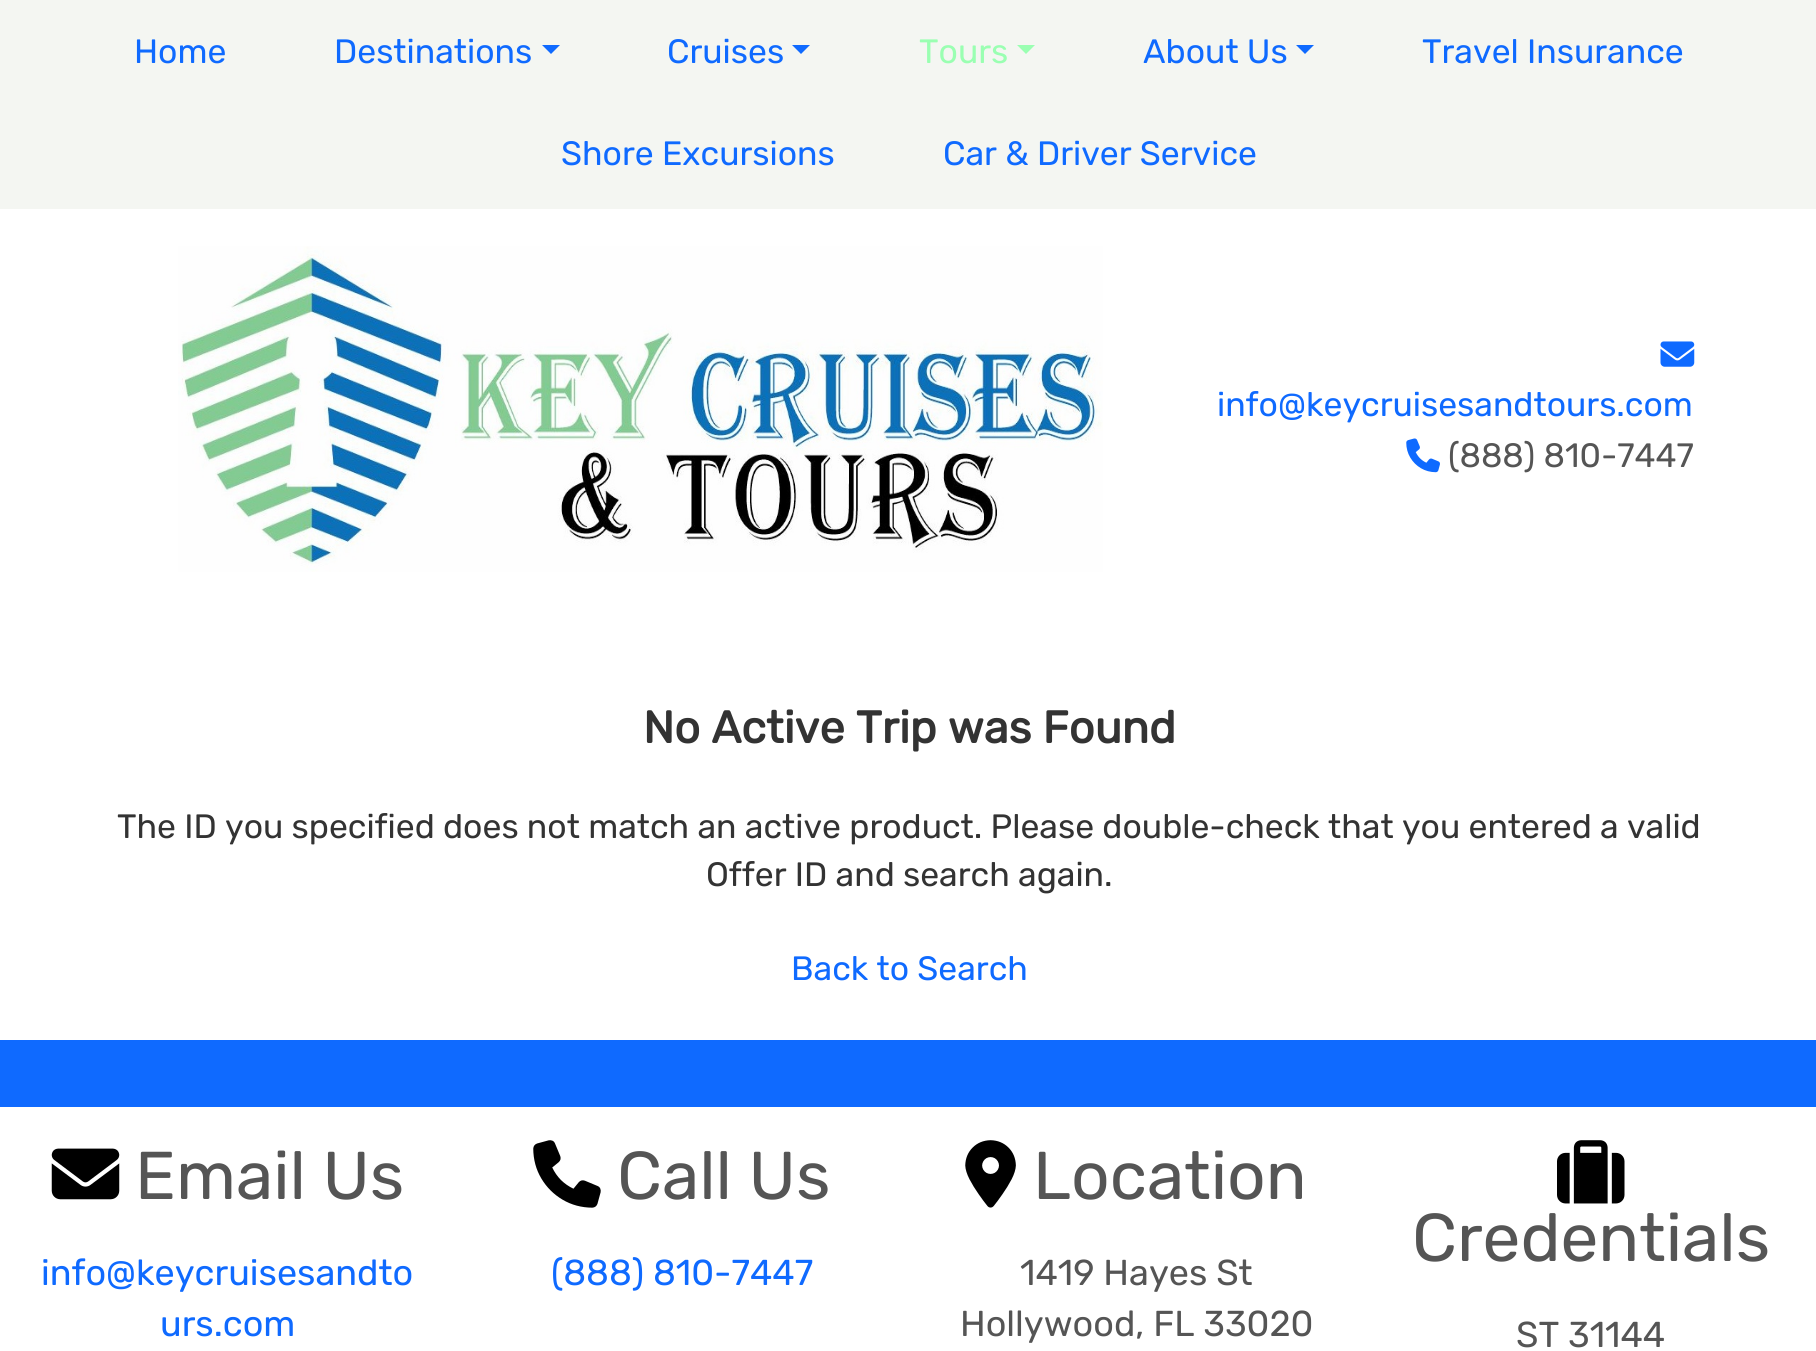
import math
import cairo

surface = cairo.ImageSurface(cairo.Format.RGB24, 1816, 1351)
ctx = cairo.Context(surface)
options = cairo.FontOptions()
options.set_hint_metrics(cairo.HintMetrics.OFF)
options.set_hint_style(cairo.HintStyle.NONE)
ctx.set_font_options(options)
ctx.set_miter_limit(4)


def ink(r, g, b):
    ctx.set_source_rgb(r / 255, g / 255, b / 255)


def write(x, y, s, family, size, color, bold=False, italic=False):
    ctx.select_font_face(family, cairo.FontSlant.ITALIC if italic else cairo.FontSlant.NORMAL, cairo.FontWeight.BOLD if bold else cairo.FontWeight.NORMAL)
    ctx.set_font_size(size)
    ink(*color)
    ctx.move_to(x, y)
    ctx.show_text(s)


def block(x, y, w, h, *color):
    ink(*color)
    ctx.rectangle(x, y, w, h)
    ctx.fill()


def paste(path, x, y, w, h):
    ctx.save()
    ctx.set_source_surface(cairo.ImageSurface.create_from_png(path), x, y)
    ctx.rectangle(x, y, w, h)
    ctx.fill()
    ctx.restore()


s1 = dict(family="Rubik Light", size=33.75, color=(15, 106, 255))
s2 = dict(family="Rubik Light", size=33.75, color=(154, 255, 178))
s3 = dict(family="Rubik Light", size=33.75, color=(85, 85, 85))
s4 = dict(family="Rubik", size=45, color=(51, 51, 51), bold=True)
s5 = dict(family="Rubik Light", size=33.75, color=(51, 51, 51))
s6 = dict(family="Rubik Light", size=67.5, color=(85, 85, 85))
s7 = dict(family="Rubik Light", size=36, color=(15, 106, 255))
s8 = dict(family="Rubik Light", size=36, color=(85, 85, 85))

ink(255, 255, 255)
ctx.paint()
block(0, 0, 1816, 209, 244, 246, 242)
write(134, 63, "Home", **s1)
write(334, 63, "Destinations", **s1)
ctx.new_path()
ctx.move_to(542, 45)
ctx.line_to(560, 45)
ctx.line_to(551, 54)
ctx.close_path()
ctx.fill()
write(667, 63, "Cruises", **s1)
ctx.new_path()
ctx.move_to(792, 45)
ctx.line_to(810, 45)
ctx.line_to(801, 54)
ctx.close_path()
ctx.fill()
write(919, 63, "Tours", **s2)
ctx.new_path()
ctx.move_to(1017, 45)
ctx.line_to(1035, 45)
ctx.line_to(1026, 54)
ctx.close_path()
ctx.fill()
write(1143, 63, "About Us", **s1)
ctx.new_path()
ctx.move_to(1296, 45)
ctx.line_to(1314, 45)
ctx.line_to(1305, 54)
ctx.close_path()
ctx.fill()
write(1422, 63, "Travel Insurance", **s1)
write(561, 165, "Shore Excursions", **s1)
write(943, 165, "Car & Driver Service", **s1)
paste("pic1.png", 178, 246, 925, 326)
paste("pic2.png", 1660, 341, 35, 26)
write(1217, 416, "info@keycruisesandtours.com", **s1)
paste("pic3.png", 1406, 438, 34, 35)
write(1448, 467, "(888) 810-7447", **s3)
write(643, 743, "No Active Trip was Found", **s4)
write(117, 838, "The ID you specified does not match an active product. Please double-check that you entered a valid", **s5)
write(706, 886, "Offer ID and search again.", **s5)
write(791, 980, "Back to Search", **s1)
block(0, 1040, 1816, 67, 15, 106, 255)
paste("pic4.png", 51, 1148, 69, 52)
write(135, 1199, "Email Us", **s6)
write(41, 1285, "info@keycruisesandto", **s7)
write(160, 1336, "urs.com", **s7)
paste("pic5.png", 533, 1140, 68, 68)
write(617, 1199, "Call Us", **s6)
write(551, 1285, "(888) 810-7447", **s7)
paste("pic6.png", 965, 1140, 51, 68)
write(1033, 1199, "Location", **s6)
write(1020, 1285, "1419 Hayes St", **s8)
write(960, 1336, "Hollywood, FL 33020", **s8)
paste("pic7.png", 1557, 1140, 68, 64)
write(1412, 1261, "Credentials", **s6)
write(1516, 1347, "ST 31144", **s8)
surface.write_to_png("screenshot.png")
